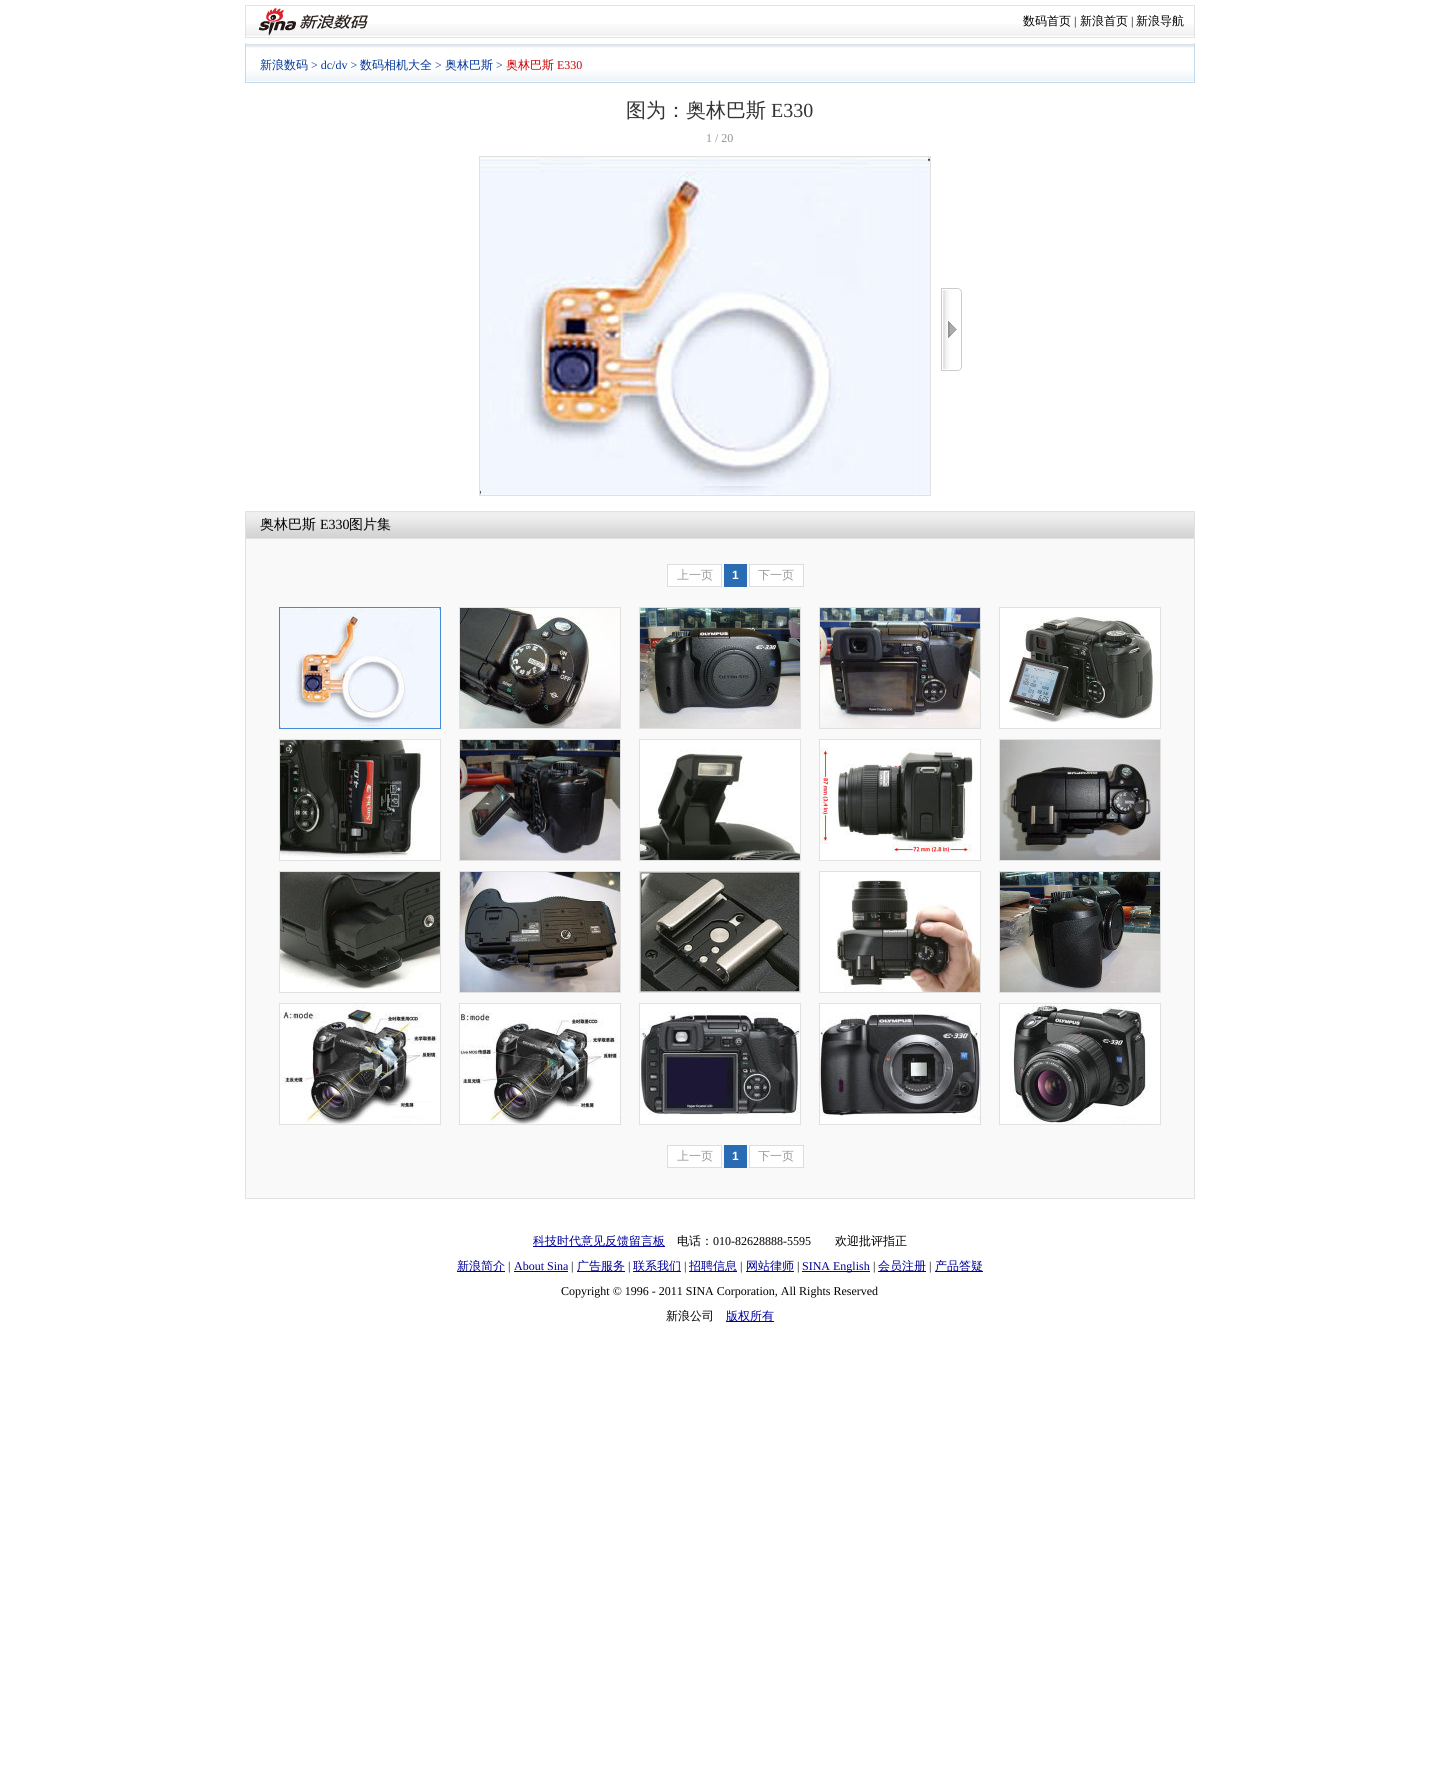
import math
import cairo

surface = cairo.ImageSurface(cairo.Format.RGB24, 1440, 1779)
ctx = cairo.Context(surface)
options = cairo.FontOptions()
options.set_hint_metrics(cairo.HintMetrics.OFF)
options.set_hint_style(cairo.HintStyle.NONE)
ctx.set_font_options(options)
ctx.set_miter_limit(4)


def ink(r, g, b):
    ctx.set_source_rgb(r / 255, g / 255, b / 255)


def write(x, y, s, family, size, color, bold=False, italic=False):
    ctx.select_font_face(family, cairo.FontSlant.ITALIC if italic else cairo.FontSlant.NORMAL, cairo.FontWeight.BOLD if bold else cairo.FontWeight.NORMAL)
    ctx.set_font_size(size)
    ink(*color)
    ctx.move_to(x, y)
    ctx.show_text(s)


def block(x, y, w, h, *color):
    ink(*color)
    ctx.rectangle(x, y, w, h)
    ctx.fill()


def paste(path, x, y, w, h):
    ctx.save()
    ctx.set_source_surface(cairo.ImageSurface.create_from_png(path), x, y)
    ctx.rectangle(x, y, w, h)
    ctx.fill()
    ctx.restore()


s1 = dict(family="WenQuanYi Zen Hei Medium", size=12, color=(0, 0, 0))
s2 = dict(family="Liberation Serif", size=12, color=(0, 0, 0))
s3 = dict(family="WenQuanYi Zen Hei Medium", size=12, color=(1, 55, 155))
s4 = dict(family="Liberation Serif", size=12, color=(1, 55, 155))
s5 = dict(family="WenQuanYi Zen Hei Medium", size=12, color=(202, 3, 6))
s6 = dict(family="Liberation Serif", size=12, color=(202, 3, 6))
s7 = dict(family="WenQuanYi Zen Hei Medium", size=20, color=(51, 51, 51))
s8 = dict(family="Liberation Serif", size=20, color=(51, 51, 51))
s9 = dict(family="Liberation Serif", size=12, color=(145, 145, 146))
s10 = dict(family="WenQuanYi Zen Hei Medium", size=14, color=(0, 0, 0))
s11 = dict(family="Liberation Serif", size=14, color=(0, 0, 0))
s12 = dict(family="WenQuanYi Zen Hei Medium", size=12, color=(153, 153, 153))
s13 = dict(family="Liberation Sans", size=12, color=(255, 255, 255), bold=True)
s14 = dict(family="WenQuanYi Zen Hei Medium", size=12, color=(0, 0, 153))
s15 = dict(family="Liberation Serif", size=12, color=(0, 0, 153))

ink(255, 255, 255)
ctx.paint()
paste("pic1.png", 246, 24, 948, 12)
ctx.rectangle(245.5, 5.5, 949, 32)
ink(227, 227, 227)
ctx.set_line_width(1)
ctx.stroke()
paste("pic2.png", 258, 8, 38, 27)
paste("pic3.png", 300, 14, 68, 15)
write(1023, 25, "数码首页", **s1)
write(1074, 25, "|", **s2)
write(1080, 25, "新浪首页", **s1)
write(1131, 25, "|", **s2)
write(1136, 25, "新浪导航", **s1)
paste("pic4.png", 246, 44, 948, 37)
block(1194, 43, 1, 40, 195, 219, 239)
block(245, 82, 950, 1, 195, 219, 239)
block(245, 43, 1, 40, 195, 219, 239)
write(260, 69, "新浪数码", **s3)
write(311, 69, "> dc/dv >", **s4)
write(360, 69, "数码相机大全", **s3)
write(435, 69, ">", **s4)
write(445, 69, "奥林巴斯", **s3)
write(496, 69, ">", **s4)
write(506, 69, "奥林巴斯", **s5)
write(557, 69, "E330", **s6)
write(626, 117, "图为：奥林巴斯", **s7)
write(771, 117, "E330", **s8)
write(706, 142, "1 / 20", **s9)
ctx.rectangle(479.5, 156.5, 451, 339)
ink(225, 225, 225)
ctx.stroke()
paste("pic5.png", 480, 157, 450, 338)
paste("pic6.png", 941, 288, 21, 83)
paste("pic7.png", 246, 512, 948, 26)
block(245, 511, 950, 1, 225, 225, 225)
block(1194, 511, 1, 27, 225, 225, 225)
block(245, 511, 1, 27, 225, 225, 225)
write(260, 529, "奥林巴斯", **s10)
write(320, 529, "E330", **s11)
write(349, 529, "图片集", **s10)
ink(249, 249, 249)
ctx.rectangle(245.5, 538.5, 949, 660)
ctx.fill_preserve()
ink(225, 225, 225)
ctx.stroke()
ink(255, 255, 255)
ctx.rectangle(667.5, 564.5, 54, 22)
ctx.fill_preserve()
ink(221, 221, 221)
ctx.stroke()
write(677, 579, "上一页", **s12)
block(724, 564, 23, 23, 41, 108, 179)
write(732, 579, "1", **s13)
ctx.rectangle(749.5, 564.5, 54, 22)
ctx.fill_preserve()
ink(221, 221, 221)
ctx.stroke()
write(758, 579, "下一页", **s12)
ctx.rectangle(279.5, 607.5, 161, 121)
ink(69, 138, 214)
ctx.stroke()
paste("pic8.png", 280, 608, 160, 120)
ctx.rectangle(459.5, 607.5, 161, 121)
ink(225, 225, 225)
ctx.stroke()
paste("pic9.png", 460, 608, 160, 120)
ctx.rectangle(639.5, 607.5, 161, 121)
ctx.stroke()
paste("pic10.png", 640, 608, 160, 120)
ctx.rectangle(819.5, 607.5, 161, 121)
ctx.stroke()
paste("pic11.png", 820, 608, 160, 120)
ink(255, 255, 255)
ctx.rectangle(999.5, 607.5, 161, 121)
ctx.fill_preserve()
ink(225, 225, 225)
ctx.stroke()
paste("pic12.png", 1008, 616, 152, 107)
block(424, 740, 16, 120, 255, 255, 255)
ctx.rectangle(279.5, 739.5, 161, 121)
ink(225, 225, 225)
ctx.stroke()
paste("pic13.png", 280, 740, 144, 120)
ctx.rectangle(459.5, 739.5, 161, 121)
ctx.stroke()
paste("pic14.png", 460, 740, 160, 120)
block(640, 740, 160, 8, 255, 255, 255)
ctx.rectangle(639.5, 739.5, 161, 121)
ink(225, 225, 225)
ctx.stroke()
paste("pic15.png", 640, 748, 160, 112)
ink(255, 255, 255)
ctx.rectangle(819.5, 739.5, 161, 121)
ctx.fill_preserve()
ink(225, 225, 225)
ctx.stroke()
paste("pic16.png", 820, 748, 156, 106)
ctx.rectangle(999.5, 739.5, 161, 121)
ctx.stroke()
paste("pic17.png", 1000, 740, 160, 120)
block(280, 991, 160, 1, 255, 255, 255)
ctx.rectangle(279.5, 871.5, 161, 121)
ink(225, 225, 225)
ctx.stroke()
paste("pic18.png", 280, 872, 160, 119)
ctx.rectangle(459.5, 871.5, 161, 121)
ctx.stroke()
paste("pic19.png", 460, 872, 160, 120)
ctx.rectangle(639.5, 871.5, 161, 121)
ctx.stroke()
paste("pic20.png", 640, 872, 160, 120)
ink(255, 255, 255)
ctx.rectangle(819.5, 871.5, 161, 121)
ctx.fill_preserve()
ink(225, 225, 225)
ctx.stroke()
paste("pic21.png", 836, 880, 144, 112)
ctx.rectangle(999.5, 871.5, 161, 121)
ctx.stroke()
paste("pic22.png", 1000, 872, 160, 120)
ctx.rectangle(279.5, 1003.5, 161, 121)
ctx.stroke()
paste("pic23.png", 280, 1004, 160, 120)
block(460, 1004, 160, 8, 255, 255, 255)
ctx.rectangle(459.5, 1003.5, 161, 121)
ink(225, 225, 225)
ctx.stroke()
paste("pic24.png", 460, 1012, 160, 112)
ink(255, 255, 255)
ctx.rectangle(639.5, 1003.5, 161, 121)
ctx.fill_preserve()
ink(225, 225, 225)
ctx.stroke()
paste("pic25.png", 640, 1012, 160, 107)
ink(255, 255, 255)
ctx.rectangle(819.5, 1003.5, 161, 121)
ctx.fill_preserve()
ink(225, 225, 225)
ctx.stroke()
paste("pic26.png", 820, 1012, 160, 108)
ink(255, 255, 255)
ctx.rectangle(999.5, 1003.5, 161, 121)
ctx.fill_preserve()
ink(225, 225, 225)
ctx.stroke()
paste("pic27.png", 1009, 1004, 142, 120)
ink(255, 255, 255)
ctx.rectangle(667.5, 1145.5, 54, 22)
ctx.fill_preserve()
ink(221, 221, 221)
ctx.stroke()
write(677, 1160, "上一页", **s12)
block(724, 1145, 23, 23, 41, 108, 179)
write(732, 1160, "1", **s13)
ctx.rectangle(749.5, 1145.5, 54, 22)
ctx.fill_preserve()
ink(221, 221, 221)
ctx.stroke()
write(758, 1160, "下一页", **s12)
block(533, 1246, 132, 1, 0, 0, 153)
write(533, 1245, "科技时代意见反馈留言板", **s14)
write(677, 1245, "电话：", **s1)
write(713, 1245, "010-82628888-5595", **s2)
write(835, 1245, "欢迎批评指正", **s1)
block(457, 1271, 48, 1, 0, 0, 153)
write(457, 1270, "新浪简介", **s14)
write(508, 1270, "|", **s2)
write(514, 1270, "About Sina", **s15)
block(514, 1271, 54, 1, 0, 0, 153)
write(571, 1270, "|", **s2)
block(577, 1271, 48, 1, 0, 0, 153)
write(577, 1270, "广告服务", **s14)
write(628, 1270, "|", **s2)
block(633, 1271, 48, 1, 0, 0, 153)
write(633, 1270, "联系我们", **s14)
write(684, 1270, "|", **s2)
block(689, 1271, 48, 1, 0, 0, 153)
write(689, 1270, "招聘信息", **s14)
write(740, 1270, "|", **s2)
block(746, 1271, 48, 1, 0, 0, 153)
write(746, 1270, "网站律师", **s14)
write(797, 1270, "|", **s2)
block(802, 1271, 68, 1, 0, 0, 153)
write(802, 1270, "SINA English", **s15)
write(873, 1270, "|", **s2)
block(878, 1271, 48, 1, 0, 0, 153)
write(878, 1270, "会员注册", **s14)
write(929, 1270, "|", **s2)
block(935, 1271, 48, 1, 0, 0, 153)
write(935, 1270, "产品答疑", **s14)
write(561, 1295, "Copyright © 1996 - 2011 SINA Corporation, All Rights Reserved", **s2)
write(666, 1320, "新浪公司", **s1)
block(726, 1321, 48, 1, 0, 0, 153)
write(726, 1320, "版权所有", **s14)
surface.write_to_png("screenshot.png")
